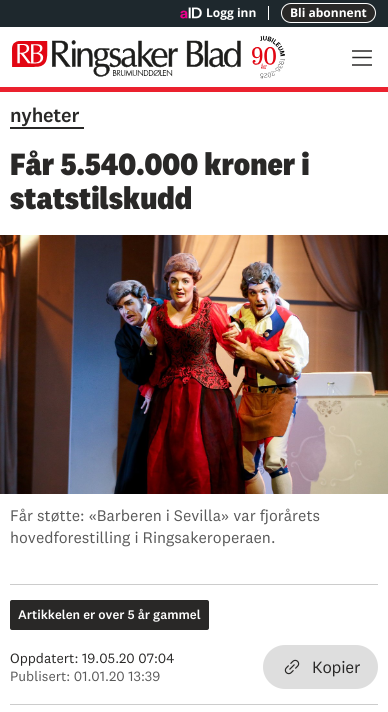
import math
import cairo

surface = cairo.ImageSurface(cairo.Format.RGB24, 388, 712)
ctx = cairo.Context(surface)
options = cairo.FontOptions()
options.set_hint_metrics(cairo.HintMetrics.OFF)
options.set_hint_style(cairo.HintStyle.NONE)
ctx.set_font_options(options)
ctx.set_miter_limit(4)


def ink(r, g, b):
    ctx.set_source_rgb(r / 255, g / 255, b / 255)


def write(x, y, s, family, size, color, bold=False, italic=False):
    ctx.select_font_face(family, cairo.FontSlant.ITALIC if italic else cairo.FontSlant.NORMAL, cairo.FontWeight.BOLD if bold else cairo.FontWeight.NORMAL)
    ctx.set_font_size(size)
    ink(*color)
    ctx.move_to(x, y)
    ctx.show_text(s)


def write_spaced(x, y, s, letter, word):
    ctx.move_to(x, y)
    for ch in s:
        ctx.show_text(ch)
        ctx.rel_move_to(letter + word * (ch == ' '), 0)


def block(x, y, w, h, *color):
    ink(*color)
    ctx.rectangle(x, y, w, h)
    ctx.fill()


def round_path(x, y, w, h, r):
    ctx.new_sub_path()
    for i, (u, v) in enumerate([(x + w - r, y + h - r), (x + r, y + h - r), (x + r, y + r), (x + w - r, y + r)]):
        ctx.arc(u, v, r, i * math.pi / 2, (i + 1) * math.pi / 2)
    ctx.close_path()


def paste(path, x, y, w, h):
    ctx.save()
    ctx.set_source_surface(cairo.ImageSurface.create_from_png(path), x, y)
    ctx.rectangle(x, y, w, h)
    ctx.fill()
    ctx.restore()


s1 = dict(family="Open Sans", size=12, color=(255, 255, 255), bold=True)
s2 = dict(family="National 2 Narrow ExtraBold", size=32, color=(41, 40, 39))
s3 = dict(family="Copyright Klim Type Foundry", size=16, color=(89, 89, 89))
s4 = dict(family="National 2 Medium", size=13, color=(255, 255, 255))
s5 = dict(family="Copyright Klim Type Foundry", size=14, color=(41, 40, 39))
s6 = dict(family="Copyright Klim Type Foundry", size=14, color=(89, 89, 89))

ink(255, 255, 255)
ctx.paint()
block(0, 0, 388, 27, 30, 40, 45)
paste("pic1.png", 180, 7, 22, 12)
write(206, 17, "Logg inn", **s1)
block(268, 6, 1, 14, 255, 255, 255)
ink(41, 40, 39)
round_path(281.5, 3.5, 94, 19, 9.5)
ctx.fill_preserve()
ink(255, 255, 255)
ctx.set_line_width(1)
ctx.stroke()
write(290, 17, "Bli abonnent", **s1)
paste("pic2.png", 12, 35, 273, 44)
block(0, 87, 388, 5, 235, 33, 46)
block(352, 50, 20, 2, 95, 94, 93)
ctx.new_path()
ctx.move_to(353, 57.5)
ctx.line_to(371, 57.5)
ink(41, 40, 39)
ctx.set_line_width(1.5)
ctx.set_line_cap(cairo.LineCap.SQUARE)
ctx.stroke()
block(352, 64, 20, 2, 95, 94, 93)
ctx.select_font_face("National 2 Medium")
ctx.set_font_size(20)
ink(41, 40, 39)
write_spaced(10, 122, "nyheter", -0.25, 0)
block(10, 127, 74, 2, 41, 40, 39)
write(10, 175, "Får 5.540.000 kroner i", **s2)
write(10, 209, "statstilskudd", **s2)
paste("pic3.png", 0, 235, 388, 259)
write(10, 521, "Får støtte: «Barberen i Sevilla» var fjorårets", **s3)
write(10, 543, "hovedforestilling i Ringsakeroperaen.", **s3)
block(10, 584, 368, 1, 204, 204, 204)
block(10, 704, 368, 1, 204, 204, 204)
ink(41, 40, 39)
round_path(10, 600, 199, 30, 2)
ctx.fill()
write(18, 619, "Artikkelen er over 5 år gammel", **s4)
write(10, 663, "Oppdatert: 19.05.20 07:04", **s5)
write(10, 681, "Publisert: 01.01.20 13:39", **s6)
ink(222, 222, 222)
round_path(263, 645, 115, 44, 22)
ctx.fill()
paste("pic4.png", 284, 659, 16, 16)
ctx.set_font_size(17)
ink(41, 40, 39)
write_spaced(312, 673, "Kopier", -0.25, 0)
surface.write_to_png("screenshot.png")
